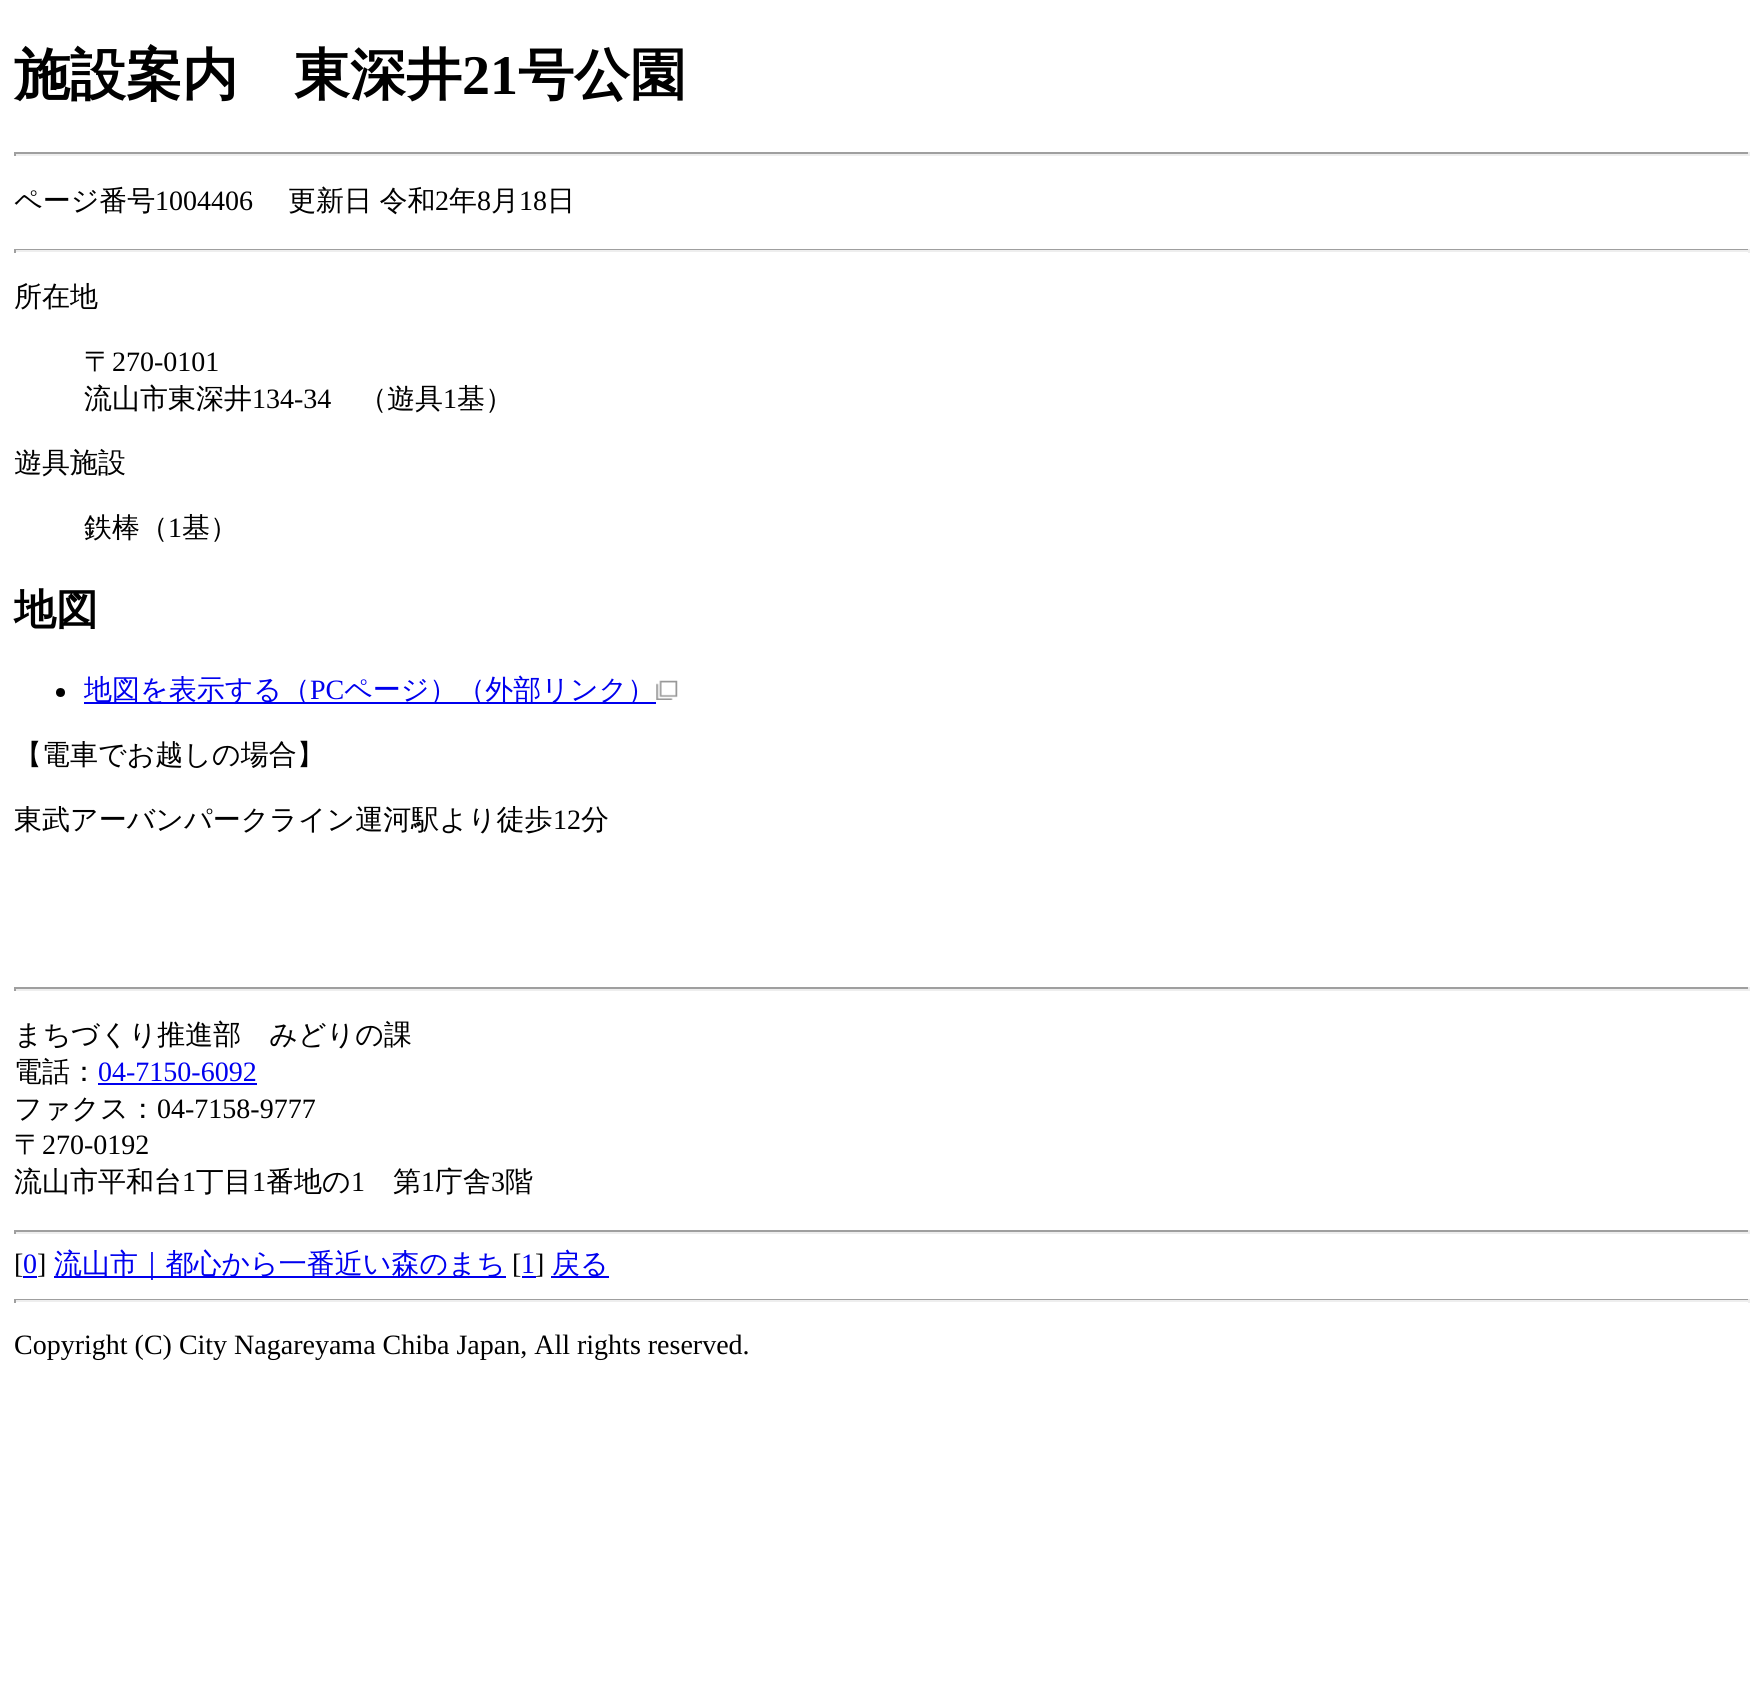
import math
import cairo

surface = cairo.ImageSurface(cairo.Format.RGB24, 1763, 1694)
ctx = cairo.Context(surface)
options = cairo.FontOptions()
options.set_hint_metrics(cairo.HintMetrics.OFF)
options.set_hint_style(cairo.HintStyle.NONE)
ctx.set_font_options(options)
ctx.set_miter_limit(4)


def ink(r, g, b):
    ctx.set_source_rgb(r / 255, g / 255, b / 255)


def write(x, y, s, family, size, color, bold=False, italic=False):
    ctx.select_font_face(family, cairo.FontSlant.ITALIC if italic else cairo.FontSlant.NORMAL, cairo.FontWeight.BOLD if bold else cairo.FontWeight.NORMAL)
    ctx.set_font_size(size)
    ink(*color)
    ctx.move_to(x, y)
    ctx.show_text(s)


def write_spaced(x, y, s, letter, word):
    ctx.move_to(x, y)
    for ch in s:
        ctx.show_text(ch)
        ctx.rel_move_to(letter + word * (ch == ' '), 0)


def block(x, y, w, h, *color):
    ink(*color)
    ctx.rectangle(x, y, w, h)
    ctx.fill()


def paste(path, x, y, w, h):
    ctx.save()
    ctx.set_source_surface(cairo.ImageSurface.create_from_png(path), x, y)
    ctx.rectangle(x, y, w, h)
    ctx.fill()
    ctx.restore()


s1 = dict(family="WenQuanYi Zen Hei", size=56, color=(0, 0, 0), bold=True)
s2 = dict(family="Liberation Serif", size=56, color=(0, 0, 0), bold=True)
s3 = dict(family="WenQuanYi Zen Hei Medium", size=28, color=(0, 0, 0))
s4 = dict(family="Liberation Serif", size=28, color=(0, 0, 0))
s5 = dict(family="WenQuanYi Zen Hei", size=42, color=(0, 0, 0), bold=True)
s6 = dict(family="WenQuanYi Zen Hei Medium", size=28, color=(0, 0, 238))
s7 = dict(family="Liberation Serif", size=28, color=(0, 0, 238))

ink(255, 255, 255)
ctx.paint()
write(14, 94, "施設案内", **s1)
write(294, 94, "東深井", **s1)
write(462, 94, "21", **s2)
write(518, 94, "号公園", **s1)
block(14, 152, 1736, 2, 159, 159, 159)
block(1748, 152, 2, 4, 238, 238, 238)
block(14, 154, 1736, 2, 238, 238, 238)
block(14, 152, 2, 4, 159, 159, 159)
write(14, 210, "ページ番号", **s3)
write(155, 210, "1004406", **s4)
ctx.select_font_face("WenQuanYi Zen Hei Medium")
write_spaced(288, 210, "更新日 令和", 0, -1)
write(435, 210, "2", **s4)
write(449, 210, "年", **s3)
write(477, 210, "8", **s4)
write(491, 210, "月", **s3)
write(519, 210, "18", **s4)
write(547, 210, "日", **s3)
block(14, 249, 1736, 1, 159, 159, 159)
block(1748, 249, 2, 4, 238, 238, 238)
block(14, 250, 1736, 2, 238, 238, 238)
block(14, 249, 2, 4, 159, 159, 159)
write(14, 306, "所在地", **s3)
write(84, 371, "〒", **s3)
write(112, 371, "270-0101", **s4)
write(84, 408, "流山市東深井", **s3)
write(252, 408, "134-34", **s4)
write(359, 408, "（遊具", **s3)
write(443, 408, "1", **s4)
write(457, 408, "基）", **s3)
write(14, 472, "遊具施設", **s3)
write(84, 537, "鉄棒（", **s3)
write(168, 537, "1", **s4)
write(182, 537, "基）", **s3)
write(14, 624, "地図", **s5)
ctx.new_path()
ctx.arc(60.5, 692.5, 4.5, 0, 2 * math.pi)
ctx.fill()
block(84, 702, 572, 2, 0, 0, 238)
write(84, 699, "地図を表示する（", **s6)
write(310, 699, "PC", **s7)
write(344, 699, "ページ）（外部リンク）", **s6)
paste("pic1.png", 656, 680, 22, 20)
write(14, 764, "【電車でお越しの場合】", **s3)
write(14, 829, "東武アーバンパークライン運河駅より徒歩", **s3)
write(553, 829, "12", **s4)
write(581, 829, "分", **s3)
block(14, 987, 1736, 2, 159, 159, 159)
block(1748, 987, 2, 4, 238, 238, 238)
block(14, 989, 1736, 2, 238, 238, 238)
block(14, 987, 2, 4, 159, 159, 159)
write(14, 1044, "まちづくり推進部　みどりの課", **s3)
write(14, 1081, "電話：", **s3)
write(98, 1081, "04-7150-6092", **s7)
block(98, 1083, 159, 2, 0, 0, 238)
write(14, 1118, "ファクス：", **s3)
write(157, 1118, "04-7158-9777", **s4)
write(14, 1154, "〒", **s3)
write(42, 1154, "270-0192", **s4)
write(14, 1191, "流山市平和台", **s3)
write(182, 1191, "1", **s4)
write(196, 1191, "丁目", **s3)
write(252, 1191, "1", **s4)
write(266, 1191, "番地の", **s3)
write(351, 1191, "1", **s4)
write(393, 1191, "第", **s3)
write(421, 1191, "1", **s4)
write(435, 1191, "庁舎", **s3)
write(491, 1191, "3", **s4)
write(505, 1191, "階", **s3)
block(14, 1230, 1736, 2, 159, 159, 159)
block(1748, 1230, 2, 4, 238, 238, 238)
block(14, 1232, 1736, 2, 238, 238, 238)
block(14, 1230, 2, 4, 159, 159, 159)
write(14, 1273, "[", **s4)
write(23, 1273, "0", **s7)
block(23, 1276, 14, 2, 0, 0, 238)
write(37, 1273, "]", **s4)
block(54, 1276, 452, 2, 0, 0, 238)
write(54, 1273, "流山市｜都心から一番近い森のまち", **s6)
write(512, 1273, "[", **s4)
write(521, 1273, "1", **s7)
block(522, 1276, 14, 2, 0, 0, 238)
write(535, 1273, "]", **s4)
block(551, 1276, 58, 2, 0, 0, 238)
write(552, 1273, "戻る", **s6)
block(14, 1299, 1736, 1, 159, 159, 159)
block(1748, 1299, 2, 4, 238, 238, 238)
block(14, 1300, 1736, 2, 238, 238, 238)
block(14, 1299, 2, 4, 159, 159, 159)
write(14, 1354, "Copyright (C) City Nagareyama Chiba Japan, All rights reserved.", **s4)
surface.write_to_png("screenshot.png")
